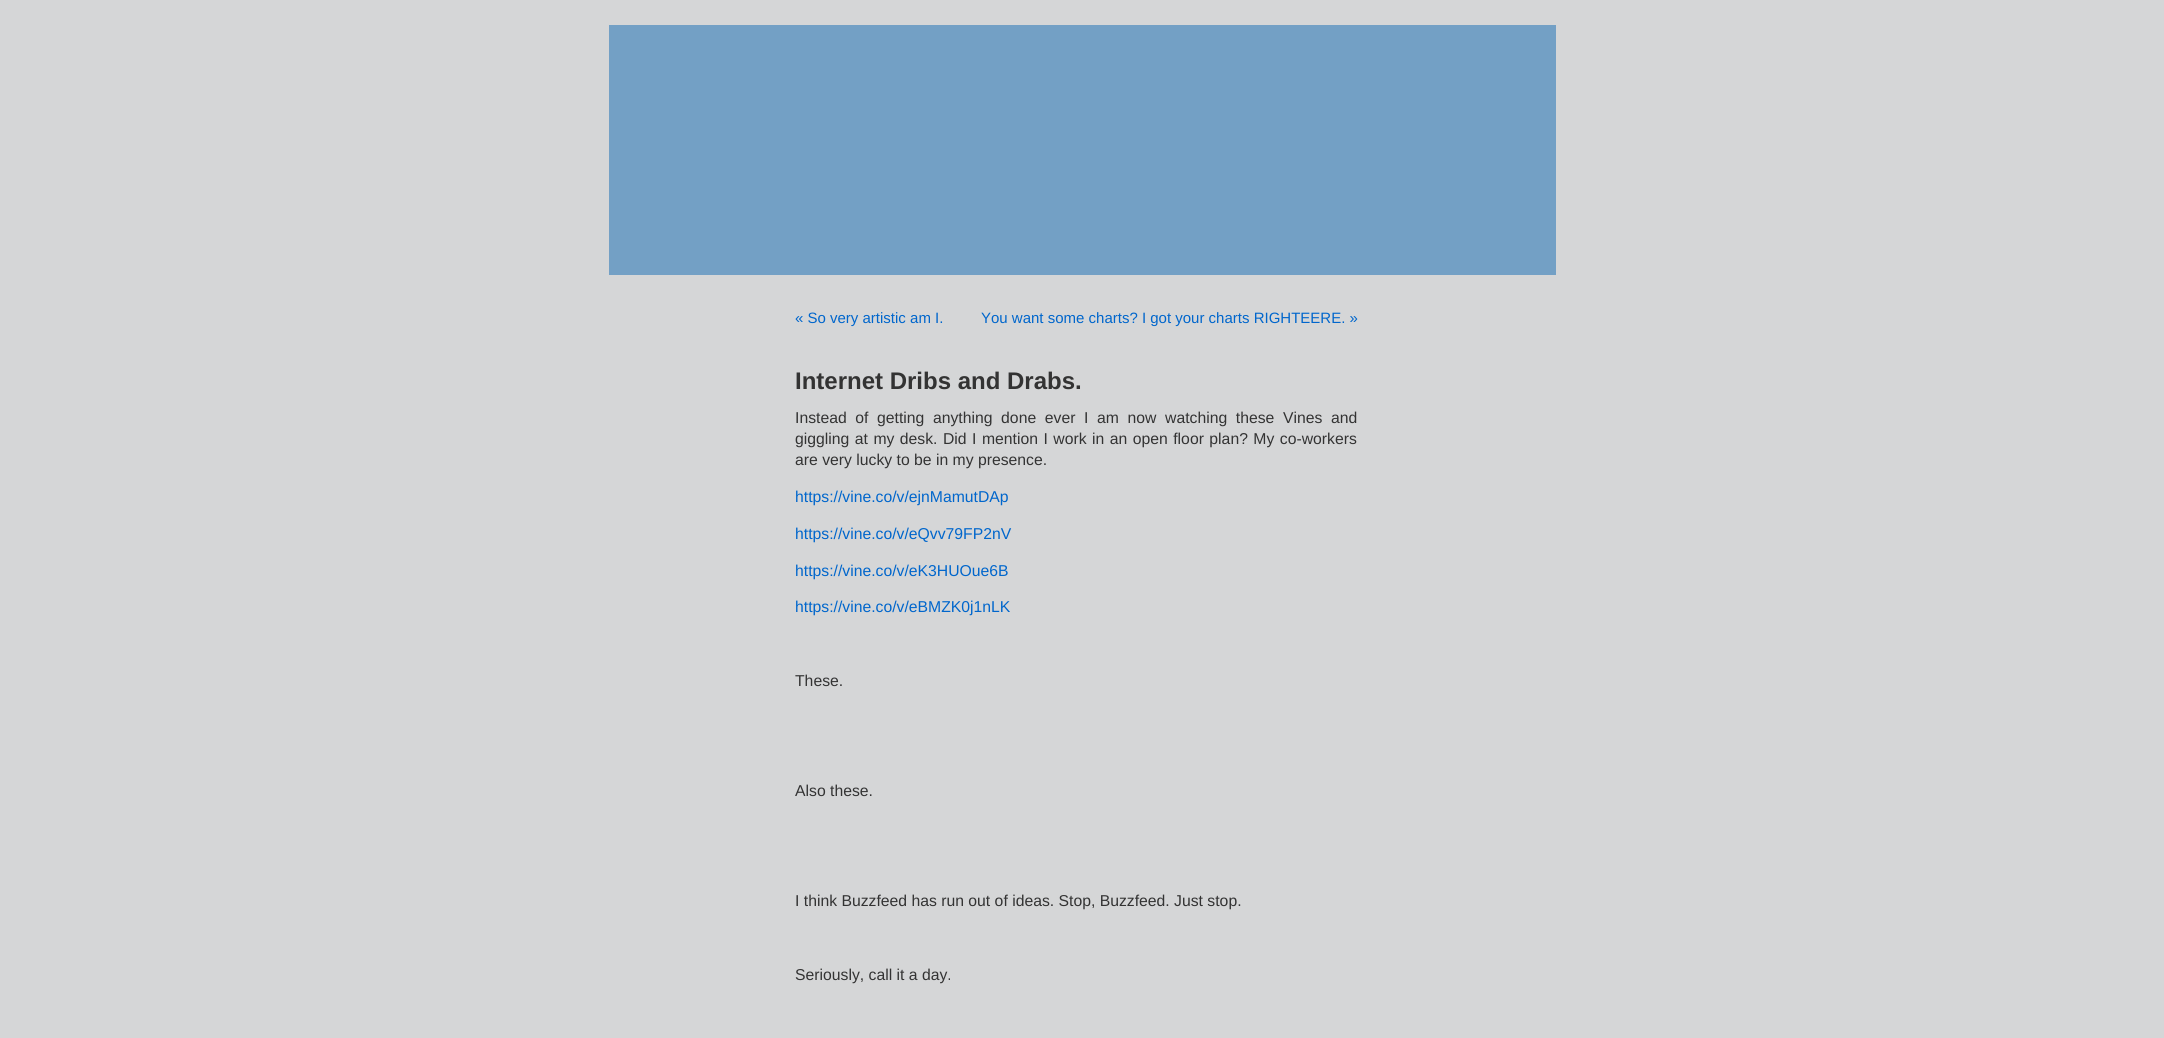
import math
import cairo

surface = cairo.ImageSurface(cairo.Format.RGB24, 2164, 1038)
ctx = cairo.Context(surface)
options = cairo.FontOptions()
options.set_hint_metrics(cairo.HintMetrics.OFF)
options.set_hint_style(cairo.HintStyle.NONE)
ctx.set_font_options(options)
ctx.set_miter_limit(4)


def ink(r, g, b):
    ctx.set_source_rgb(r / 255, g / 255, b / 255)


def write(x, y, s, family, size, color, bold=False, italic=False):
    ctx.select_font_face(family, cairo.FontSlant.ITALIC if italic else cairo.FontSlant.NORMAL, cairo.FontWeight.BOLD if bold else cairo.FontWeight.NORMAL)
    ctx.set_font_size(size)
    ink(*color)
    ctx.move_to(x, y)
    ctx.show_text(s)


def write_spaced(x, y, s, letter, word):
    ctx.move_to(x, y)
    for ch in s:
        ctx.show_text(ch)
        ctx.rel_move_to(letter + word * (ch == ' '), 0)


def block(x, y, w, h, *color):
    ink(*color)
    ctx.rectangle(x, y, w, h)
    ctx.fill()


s1 = dict(family="Liberation Sans", size=15, color=(0, 102, 204))
s2 = dict(family="Liberation Sans", size=24, color=(51, 51, 51), bold=True)
s3 = dict(family="Liberation Sans", size=15.75, color=(51, 51, 51))
s4 = dict(family="Liberation Sans", size=15.75, color=(0, 102, 204))

ink(213, 214, 215)
ctx.paint()
block(609, 25, 947, 250, 115, 160, 197)
write(795, 323, "« So very artistic am I.", **s1)
write(981, 323, "You want some charts? I got your charts RIGHTEERE. »", **s1)
write(795, 389, "Internet Dribs and Drabs.", **s2)
ctx.select_font_face("Liberation Sans")
ctx.set_font_size(15.75)
write_spaced(795, 423, "Instead of getting anything done ever I am now watching these Vines and", 0, 4.25)
write_spaced(795, 444, "giggling at my desk. Did I mention I work in an open floor plan? My co-workers", 0, 1.1)
write(795, 465, "are very lucky to be in my presence.", **s3)
write(795, 502, "https://vine.co/v/ejnMamutDAp", **s4)
write(795, 539, "https://vine.co/v/eQvv79FP2nV", **s4)
write(795, 576, "https://vine.co/v/eK3HUOue6B", **s4)
write(795, 612, "https://vine.co/v/eBMZK0j1nLK", **s4)
write(795, 686, "These.", **s3)
write(795, 796, "Also these.", **s3)
write(795, 906, "I think Buzzfeed has run out of ideas. Stop, Buzzfeed. Just stop.", **s3)
write(795, 980, "Seriously, call it a day.", **s3)
surface.write_to_png("screenshot.png")
